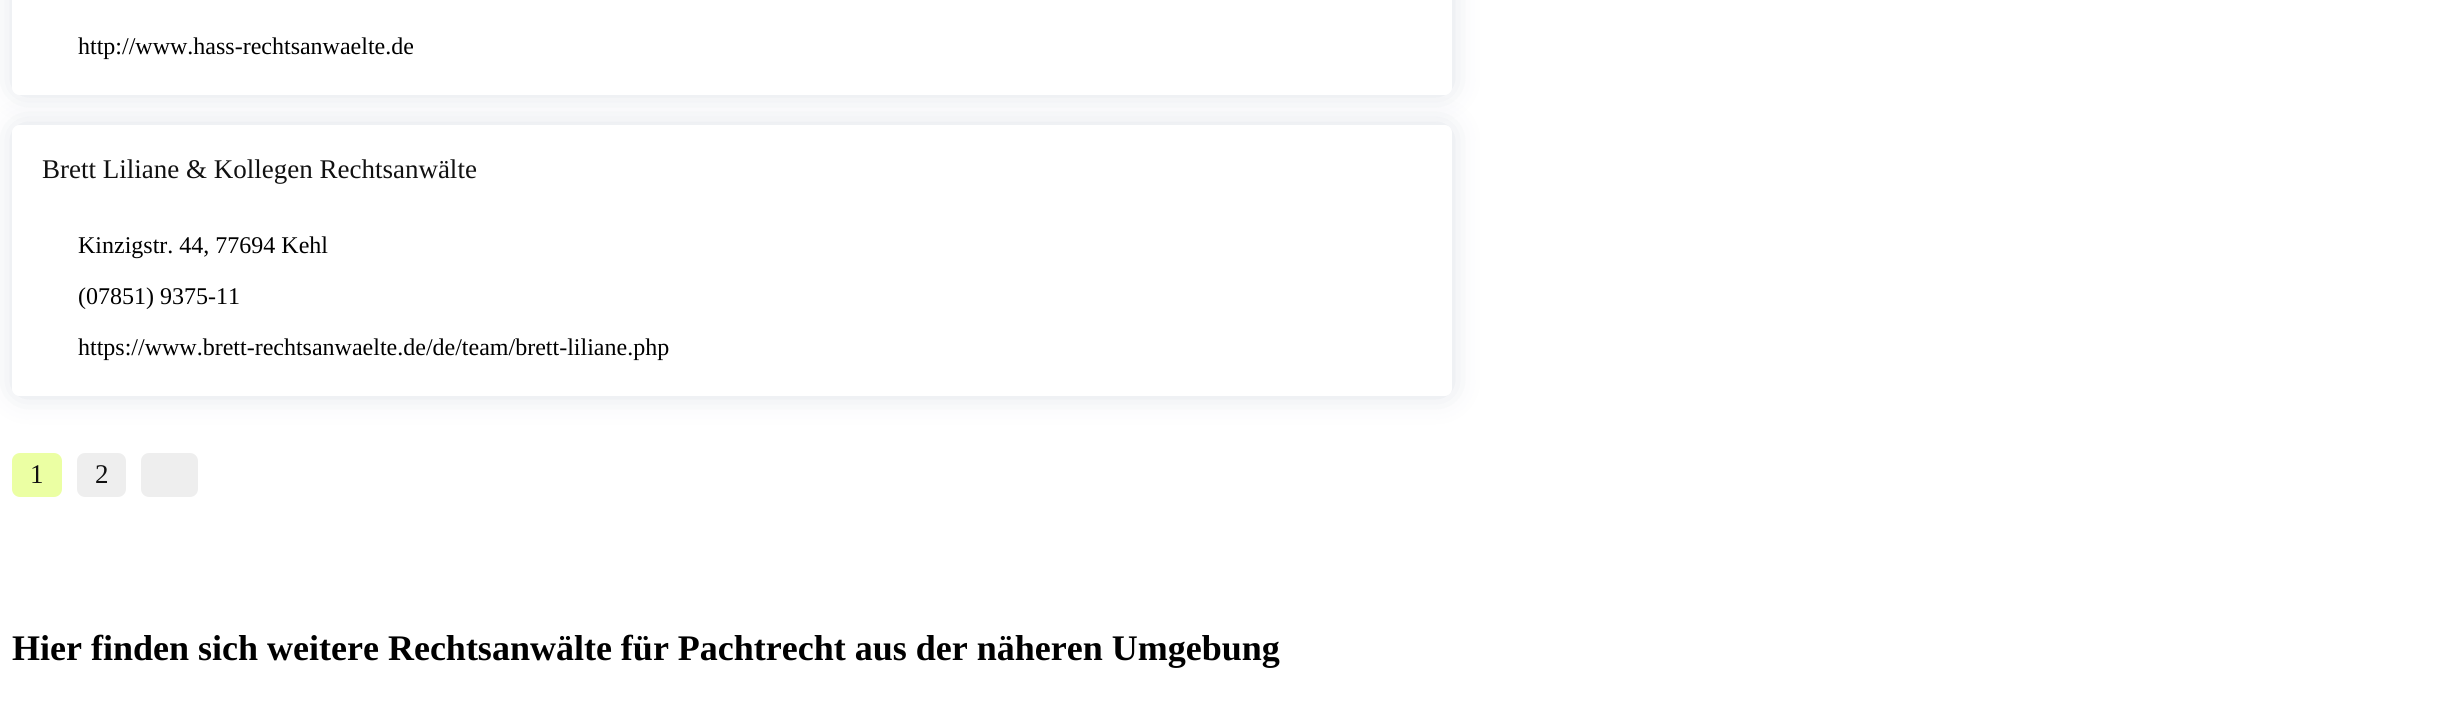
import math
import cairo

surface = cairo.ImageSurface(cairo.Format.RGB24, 2455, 709)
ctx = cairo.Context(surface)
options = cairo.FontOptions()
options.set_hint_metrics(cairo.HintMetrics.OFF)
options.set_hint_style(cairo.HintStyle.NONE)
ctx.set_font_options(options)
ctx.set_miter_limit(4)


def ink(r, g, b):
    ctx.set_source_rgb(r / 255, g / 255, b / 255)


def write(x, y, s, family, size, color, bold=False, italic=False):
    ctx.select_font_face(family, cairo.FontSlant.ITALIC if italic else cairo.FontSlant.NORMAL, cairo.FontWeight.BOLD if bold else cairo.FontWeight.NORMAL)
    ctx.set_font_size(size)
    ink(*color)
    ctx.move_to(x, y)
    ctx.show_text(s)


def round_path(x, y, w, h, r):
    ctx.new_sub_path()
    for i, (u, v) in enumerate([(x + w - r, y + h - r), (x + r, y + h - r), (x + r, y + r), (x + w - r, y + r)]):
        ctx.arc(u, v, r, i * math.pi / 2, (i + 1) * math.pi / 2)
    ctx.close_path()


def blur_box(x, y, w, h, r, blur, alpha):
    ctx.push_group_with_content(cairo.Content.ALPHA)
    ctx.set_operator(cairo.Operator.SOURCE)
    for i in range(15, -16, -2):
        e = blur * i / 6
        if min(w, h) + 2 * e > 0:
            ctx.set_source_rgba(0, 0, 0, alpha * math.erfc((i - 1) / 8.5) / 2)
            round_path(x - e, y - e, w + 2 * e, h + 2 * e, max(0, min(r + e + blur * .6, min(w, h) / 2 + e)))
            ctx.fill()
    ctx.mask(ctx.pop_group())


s1 = dict(family="Liberation Serif", size=24, color=(0, 0, 0))
s2 = dict(family="Liberation Serif", size=27, color=(17, 17, 17))
s3 = dict(family="Liberation Serif", size=36, color=(0, 0, 0), bold=True)

ink(255, 255, 255)
ctx.paint()
ctx.save()
ctx.set_fill_rule(cairo.FillRule.EVEN_ODD)
ctx.new_path()
ctx.move_to(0, 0)
ctx.line_to(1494, 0)
ctx.line_to(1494, 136)
ctx.line_to(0, 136)
ctx.close_path()
ctx.move_to(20, -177)
ctx.line_to(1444, -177)
ctx.curve_to(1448.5, -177, 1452, -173.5, 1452, -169)
ctx.line_to(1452, 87)
ctx.curve_to(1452, 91.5, 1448.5, 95, 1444, 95)
ctx.line_to(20, 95)
ctx.curve_to(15.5, 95, 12, 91.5, 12, 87)
ctx.line_to(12, -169)
ctx.curve_to(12, -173.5, 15.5, -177, 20, -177)
ctx.close_path()
ctx.clip()
ink(34, 56, 101)
blur_box(17, -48, 1431, 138, 3, 15, 0.2)
ctx.restore()
write(78, 54, "http://www.hass-rechtsanwaelte.de", **s1)
ctx.save()
ctx.set_fill_rule(cairo.FillRule.EVEN_ODD)
ctx.new_path()
ctx.move_to(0, 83)
ctx.line_to(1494, 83)
ctx.line_to(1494, 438)
ctx.line_to(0, 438)
ctx.close_path()
ctx.move_to(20, 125)
ctx.line_to(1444, 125)
ctx.curve_to(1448.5, 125, 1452, 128.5, 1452, 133)
ctx.line_to(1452, 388)
ctx.curve_to(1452, 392.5, 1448.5, 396, 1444, 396)
ctx.line_to(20, 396)
ctx.curve_to(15.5, 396, 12, 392.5, 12, 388)
ctx.line_to(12, 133)
ctx.curve_to(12, 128.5, 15.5, 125, 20, 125)
ctx.close_path()
ctx.clip()
ink(34, 56, 101)
blur_box(17, 129, 1431, 263, 3, 15, 0.2)
ctx.restore()
write(42, 178, "Brett Liliane & Kollegen Rechtsanwälte", **s2)
write(78, 253, "Kinzigstr. 44, 77694 Kehl", **s1)
write(78, 304, "(07851) 9375-11", **s1)
write(78, 355, "https://www.brett-rechtsanwaelte.de/de/team/brett-liliane.php", **s1)
ink(235, 255, 163)
round_path(12, 453, 50, 44, 8)
ctx.fill()
write(30, 483, "1", **s2)
ink(238, 238, 238)
round_path(77, 453, 49, 44, 8)
ctx.fill()
write(95, 483, "2", **s2)
ink(238, 238, 238)
round_path(141, 453, 57, 44, 8)
ctx.fill()
write(12, 660, "Hier finden sich weitere Rechtsanwälte für Pachtrecht aus der näheren Umgebung", **s3)
surface.write_to_png("screenshot.png")
